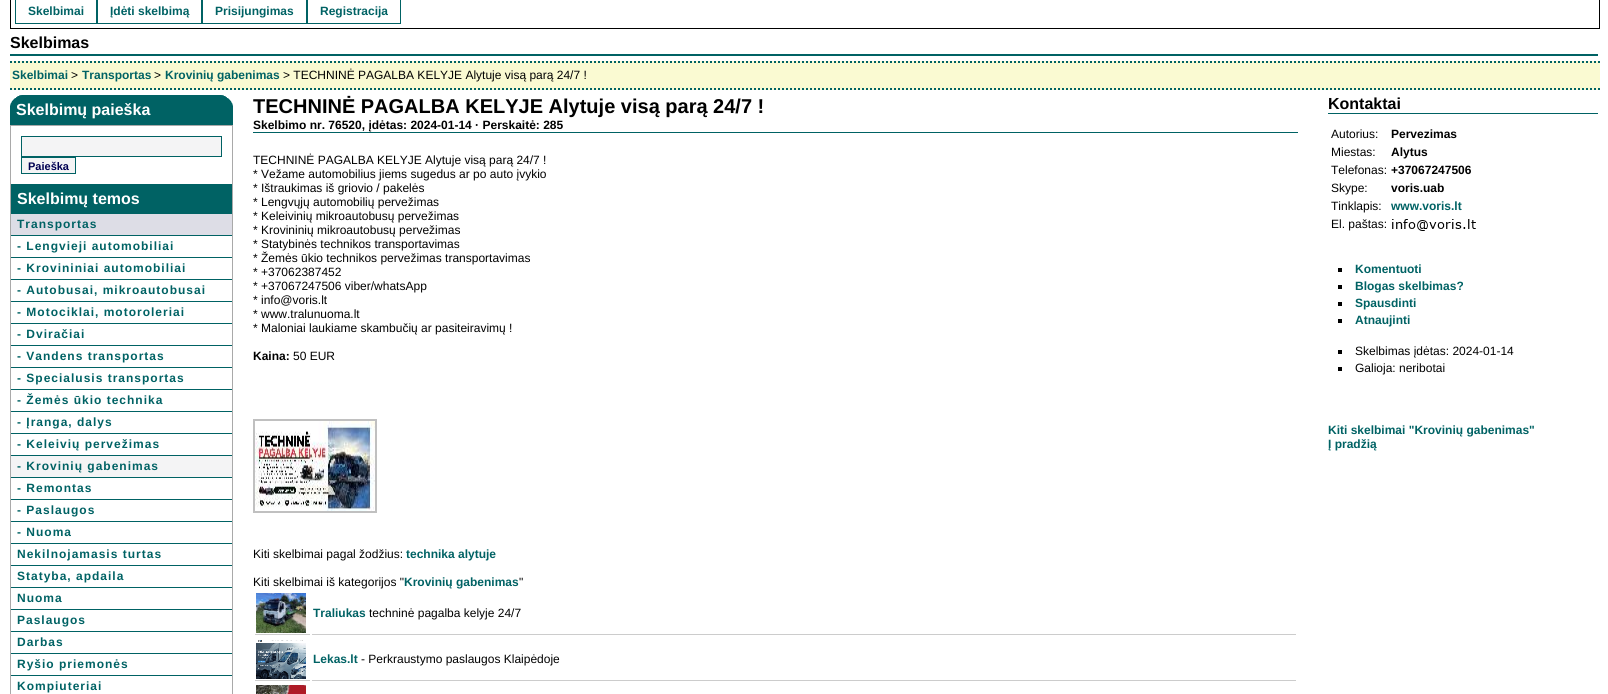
import math
import cairo

surface = cairo.ImageSurface(cairo.Format.RGB24, 1608, 694)
ctx = cairo.Context(surface)
options = cairo.FontOptions()
options.set_hint_metrics(cairo.HintMetrics.OFF)
options.set_hint_style(cairo.HintStyle.NONE)
ctx.set_font_options(options)
ctx.set_miter_limit(4)


def ink(r, g, b):
    ctx.set_source_rgb(r / 255, g / 255, b / 255)


def write(x, y, s, family, size, color, bold=False, italic=False):
    ctx.select_font_face(family, cairo.FontSlant.ITALIC if italic else cairo.FontSlant.NORMAL, cairo.FontWeight.BOLD if bold else cairo.FontWeight.NORMAL)
    ctx.set_font_size(size)
    ink(*color)
    ctx.move_to(x, y)
    ctx.show_text(s)


def write_spaced(x, y, s, letter, word):
    ctx.move_to(x, y)
    for ch in s:
        ctx.show_text(ch)
        ctx.rel_move_to(letter + word * (ch == ' '), 0)


def block(x, y, w, h, *color):
    ink(*color)
    ctx.rectangle(x, y, w, h)
    ctx.fill()


def paste(path, x, y, w, h):
    ctx.save()
    ctx.set_source_surface(cairo.ImageSurface.create_from_png(path), x, y)
    ctx.rectangle(x, y, w, h)
    ctx.fill()
    ctx.restore()


s1 = dict(family="Liberation Sans", size=12, color=(0, 98, 100), bold=True)
s2 = dict(family="Liberation Sans", size=16, color=(0, 0, 0), bold=True)
s3 = dict(family="Liberation Sans", size=12, color=(0, 0, 0))
s4 = dict(family="Liberation Sans", size=16, color=(255, 255, 255), bold=True)
s5 = dict(family="Liberation Sans", size=11, color=(0, 0, 81), bold=True)
s6 = dict(family="Liberation Sans", size=20, color=(0, 0, 0), bold=True)
s7 = dict(family="Liberation Sans", size=12, color=(0, 0, 0), bold=True)

ink(255, 255, 255)
ctx.paint()
ctx.rectangle(10.5, -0.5, 1589, 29)
ink(0, 0, 0)
ctx.set_line_width(1)
ctx.stroke()
ctx.rectangle(15.5, -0.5, 81, 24)
ink(0, 98, 100)
ctx.stroke()
write(28, 15, "Skelbimai", **s1)
ctx.rectangle(97.5, -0.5, 104, 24)
ctx.stroke()
write(110, 15, "Įdėti skelbimą", **s1)
ctx.rectangle(202.5, -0.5, 104, 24)
ctx.stroke()
write(215, 15, "Prisijungimas", **s1)
ctx.rectangle(307.5, -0.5, 93, 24)
ctx.stroke()
write(320, 15, "Registracija", **s1)
block(10, 54, 1588, 2, 0, 98, 100)
write(10, 48, "Skelbimas", **s2)
block(10, 61, 1590, 29, 250, 250, 210)
ctx.new_path()
ctx.move_to(10, 62)
ctx.line_to(1600, 62)
ink(0, 98, 100)
ctx.set_line_width(2)
ctx.set_dash([2, 2])
ctx.stroke()
ctx.new_path()
ctx.move_to(10, 89)
ctx.line_to(1600, 89)
ctx.stroke()
write(12, 79, "Skelbimai", **s1)
write(71, 79, ">", **s3)
write(82, 79, "Transportas", **s1)
write(154, 79, ">", **s3)
write(165, 79, "Krovinių gabenimas", **s1)
write(283, 79, "> TECHNINĖ PAGALBA KELYJE Alytuje visą parą 24/7 !", **s3)
block(10, 95, 223, 30, 0, 98, 100)
paste("pic1.png", 10, 95, 12, 11)
paste("pic2.png", 221, 95, 12, 11)
write(16, 115, "Skelbimų paieška", **s4)
ctx.rectangle(10.5, 125.5, 222, 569)
ink(169, 169, 169)
ctx.set_line_width(1)
ctx.set_dash([])
ctx.stroke()
ink(244, 244, 245)
ctx.rectangle(21.5, 136.5, 200, 20)
ctx.fill_preserve()
ink(0, 98, 100)
ctx.stroke()
ink(244, 244, 245)
ctx.rectangle(21.5, 157.5, 54, 16)
ctx.fill_preserve()
ink(0, 98, 100)
ctx.stroke()
write(28, 170, "Paieška", **s5)
block(11, 184, 221, 30, 0, 98, 100)
write(17, 204, "Skelbimų temos", **s4)
block(11, 214, 221, 21, 221, 221, 230)
block(11, 235, 221, 1, 0, 98, 100)
ctx.set_font_size(12)
write_spaced(17, 228, "Transportas", 1, 0)
block(11, 257, 221, 1, 0, 98, 100)
write_spaced(17, 250, "- Lengvieji automobiliai", 1, 0)
block(11, 279, 221, 1, 0, 98, 100)
write_spaced(17, 272, "- Krovininiai automobiliai", 1, 0)
block(11, 301, 221, 1, 0, 98, 100)
write_spaced(17, 294, "- Autobusai, mikroautobusai", 1, 0)
block(11, 323, 221, 1, 0, 98, 100)
write_spaced(17, 316, "- Motociklai, motoroleriai", 1, 0)
block(11, 345, 221, 1, 0, 98, 100)
write_spaced(17, 338, "- Dviračiai", 1, 0)
block(11, 367, 221, 1, 0, 98, 100)
write_spaced(17, 360, "- Vandens transportas", 1, 0)
block(11, 389, 221, 1, 0, 98, 100)
write_spaced(17, 382, "- Specialusis transportas", 1, 0)
block(11, 411, 221, 1, 0, 98, 100)
write_spaced(17, 404, "- Žemės ūkio technika", 1, 0)
block(11, 433, 221, 1, 0, 98, 100)
write_spaced(17, 426, "- Įranga, dalys", 1, 0)
block(11, 455, 221, 1, 0, 98, 100)
write_spaced(17, 448, "- Keleivių pervežimas", 1, 0)
block(11, 456, 221, 21, 244, 244, 245)
block(11, 477, 221, 1, 0, 98, 100)
write_spaced(17, 470, "- Krovinių gabenimas", 1, 0)
block(11, 499, 221, 1, 0, 98, 100)
write_spaced(17, 492, "- Remontas", 1, 0)
block(11, 521, 221, 1, 0, 98, 100)
write_spaced(17, 514, "- Paslaugos", 1, 0)
block(11, 543, 221, 1, 0, 98, 100)
write_spaced(17, 536, "- Nuoma", 1, 0)
block(11, 565, 221, 1, 0, 98, 100)
write_spaced(17, 558, "Nekilnojamasis turtas", 1, 0)
block(11, 587, 221, 1, 0, 98, 100)
write_spaced(17, 580, "Statyba, apdaila", 1, 0)
block(11, 609, 221, 1, 0, 98, 100)
write_spaced(17, 602, "Nuoma", 1, 0)
block(11, 631, 221, 1, 0, 98, 100)
write_spaced(17, 624, "Paslaugos", 1, 0)
block(11, 653, 221, 1, 0, 98, 100)
write_spaced(17, 646, "Darbas", 1, 0)
block(11, 675, 221, 1, 0, 98, 100)
write_spaced(17, 668, "Ryšio priemonės", 1, 0)
write_spaced(17, 690, "Kompiuteriai", 1, 0)
block(253, 132, 1045, 1, 0, 98, 100)
write(253, 113, "TECHNINĖ PAGALBA KELYJE Alytuje visą parą 24/7 !", **s6)
write(253, 129, "Skelbimo nr. 76520, įdėtas: 2024-01-14 · Perskaitė: 285", **s7)
write(253, 164, "TECHNINĖ PAGALBA KELYJE Alytuje visą parą 24/7 !", **s3)
write(253, 178, "* Vežame automobilius jiems sugedus ar po auto įvykio", **s3)
write(253, 192, "* Ištraukimas iš griovio / pakelės", **s3)
write(253, 206, "* Lengvųjų automobilių pervežimas", **s3)
write(253, 220, "* Keleivinių mikroautobusų pervežimas", **s3)
write(253, 234, "* Krovininių mikroautobusų pervežimas", **s3)
write(253, 248, "* Statybinės technikos transportavimas", **s3)
write(253, 262, "* Žemės ūkio technikos pervežimas transportavimas", **s3)
write(253, 276, "* +37062387452", **s3)
write(253, 290, "* +37067247506 viber/whatsApp", **s3)
write(253, 304, "* info@voris.lt", **s3)
write(253, 318, "* www.tralunuoma.lt", **s3)
write(253, 332, "* Maloniai laukiame skambučių ar pasiteiravimų !", **s3)
write(253, 360, "Kaina:", **s7)
write(293, 360, "50 EUR", **s3)
ctx.rectangle(254, 420, 122, 92)
ink(192, 192, 192)
ctx.set_line_width(2)
ctx.stroke()
paste("pic3.png", 255, 421, 120, 90)
write(253, 558, "Kiti skelbimai pagal žodžius:", **s3)
write(406, 558, "technika alytuje", **s1)
write(253, 586, "Kiti skelbimai iš kategorijos \"", **s3)
write(404, 586, "Krovinių gabenimas", **s1)
write(519, 586, "\"", **s3)
block(255, 634, 55, 1, 204, 204, 204)
paste("pic4.png", 256, 593, 50, 40)
block(312, 634, 984, 1, 204, 204, 204)
write(313, 617, "Traliukas", **s1)
write(369, 617, "techninė pagalba kelyje 24/7", **s3)
block(255, 680, 55, 1, 204, 204, 204)
paste("pic5.png", 256, 640, 50, 39)
block(312, 680, 984, 1, 204, 204, 204)
write(313, 663, "Lekas.lt", **s1)
write(361, 663, "- Perkraustymo paslaugos Klaipėdoje", **s3)
paste("pic6.png", 256, 685, 50, 9)
block(1328, 113, 270, 1, 0, 98, 100)
write(1328, 109, "Kontaktai", **s2)
write(1331, 138, "Autorius:", **s3)
write(1391, 138, "Pervezimas", **s7)
write(1331, 156, "Miestas:", **s3)
write(1391, 156, "Alytus", **s7)
write(1331, 174, "Telefonas:", **s3)
write(1391, 174, "+37067247506", **s7)
write(1331, 192, "Skype:", **s3)
write(1391, 192, "voris.uab", **s7)
write(1331, 210, "Tinklapis:", **s3)
write(1391, 210, "www.voris.lt", **s1)
write(1331, 228, "El. paštas:", **s3)
paste("pic7.png", 1392, 219, 84, 12)
block(1338, 268, 4, 4, 0, 0, 0)
write(1355, 273, "Komentuoti", **s1)
block(1338, 285, 4, 4, 0, 0, 0)
write(1355, 290, "Blogas skelbimas?", **s1)
block(1338, 302, 4, 4, 0, 0, 0)
write(1355, 307, "Spausdinti", **s1)
block(1338, 319, 4, 4, 0, 0, 0)
write(1355, 324, "Atnaujinti", **s1)
block(1338, 350, 4, 4, 0, 0, 0)
write(1355, 355, "Skelbimas įdėtas: 2024-01-14", **s3)
block(1338, 367, 4, 4, 0, 0, 0)
write(1355, 372, "Galioja: neribotai", **s3)
write(1328, 434, "Kiti skelbimai \"Krovinių gabenimas\"", **s1)
write(1328, 448, "Į pradžią", **s1)
surface.write_to_png("screenshot.png")
